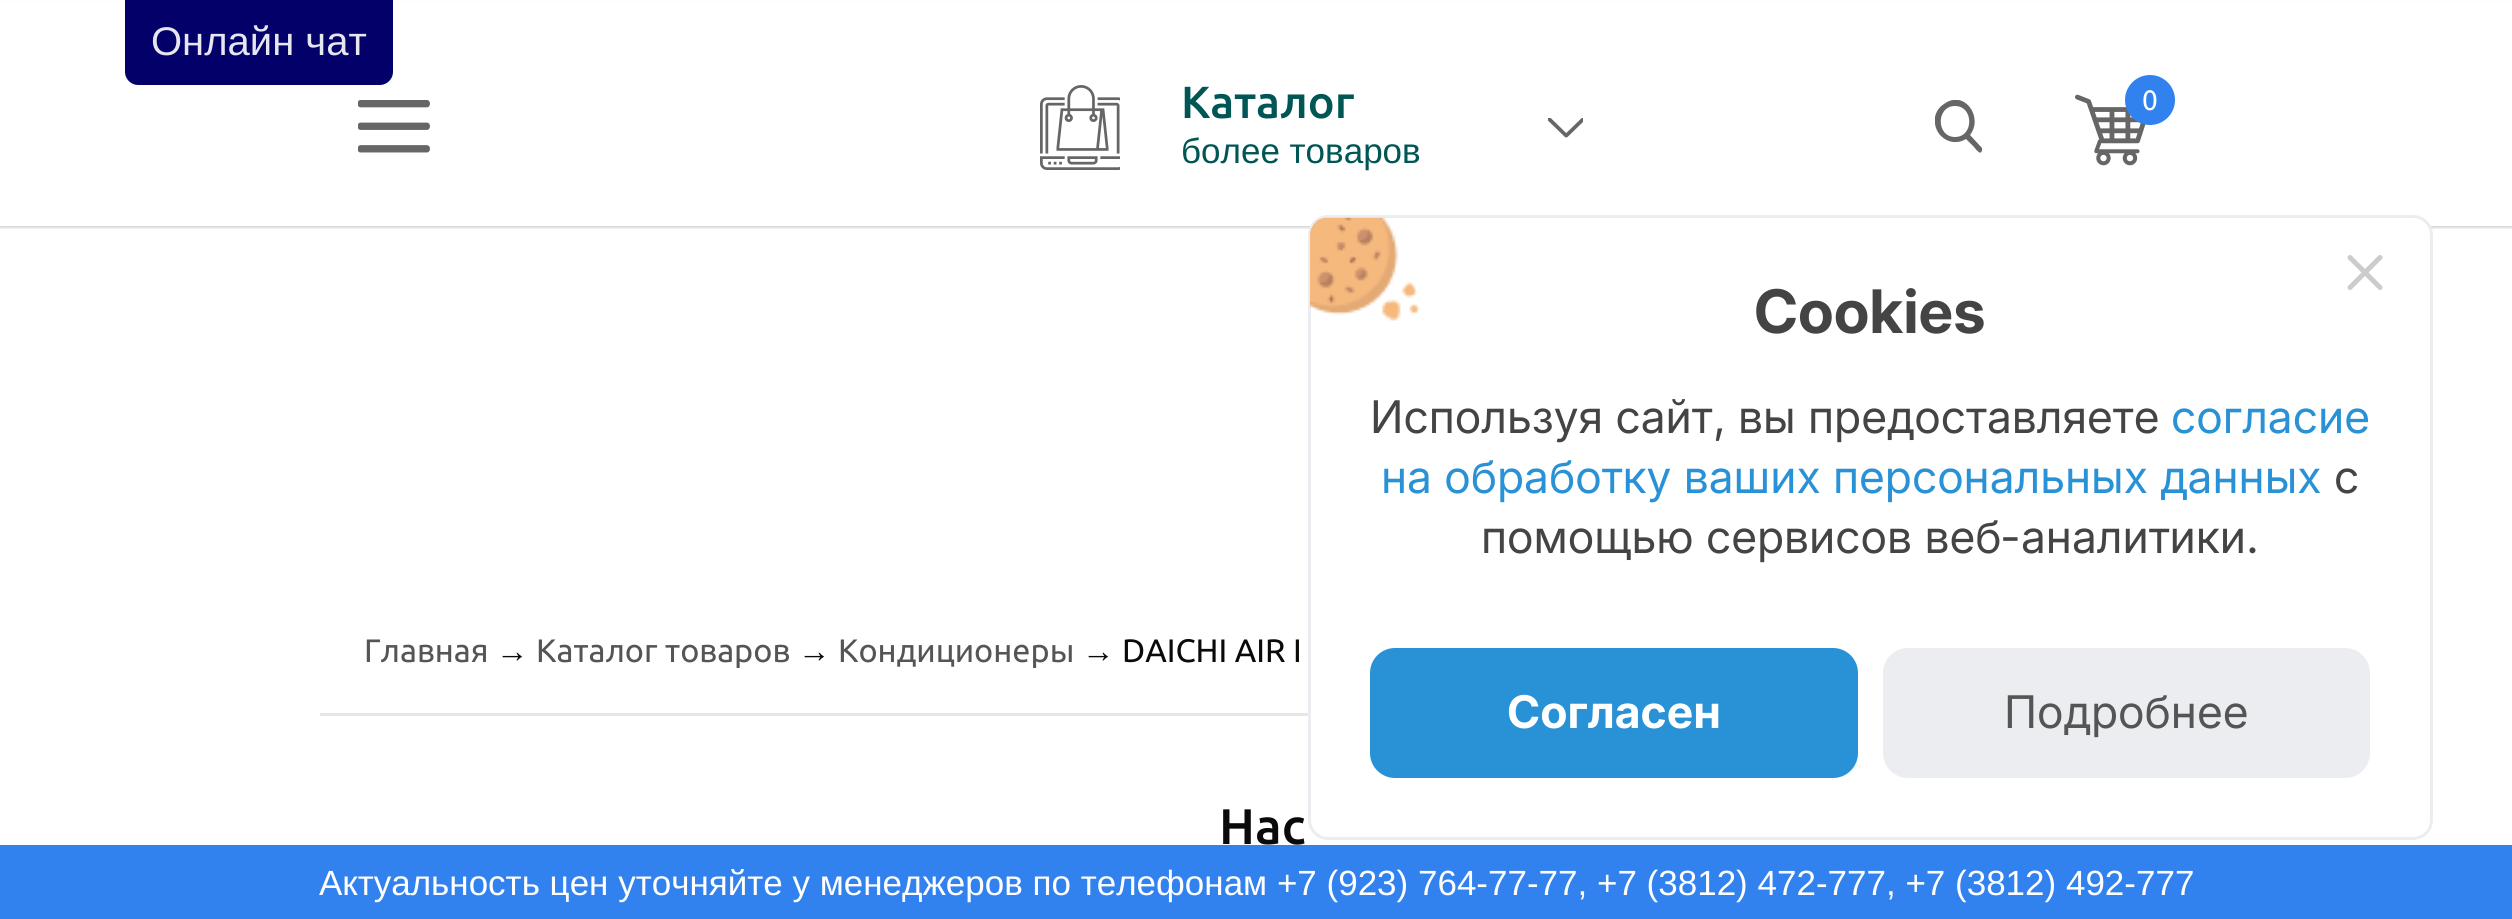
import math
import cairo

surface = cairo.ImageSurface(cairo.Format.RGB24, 2512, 919)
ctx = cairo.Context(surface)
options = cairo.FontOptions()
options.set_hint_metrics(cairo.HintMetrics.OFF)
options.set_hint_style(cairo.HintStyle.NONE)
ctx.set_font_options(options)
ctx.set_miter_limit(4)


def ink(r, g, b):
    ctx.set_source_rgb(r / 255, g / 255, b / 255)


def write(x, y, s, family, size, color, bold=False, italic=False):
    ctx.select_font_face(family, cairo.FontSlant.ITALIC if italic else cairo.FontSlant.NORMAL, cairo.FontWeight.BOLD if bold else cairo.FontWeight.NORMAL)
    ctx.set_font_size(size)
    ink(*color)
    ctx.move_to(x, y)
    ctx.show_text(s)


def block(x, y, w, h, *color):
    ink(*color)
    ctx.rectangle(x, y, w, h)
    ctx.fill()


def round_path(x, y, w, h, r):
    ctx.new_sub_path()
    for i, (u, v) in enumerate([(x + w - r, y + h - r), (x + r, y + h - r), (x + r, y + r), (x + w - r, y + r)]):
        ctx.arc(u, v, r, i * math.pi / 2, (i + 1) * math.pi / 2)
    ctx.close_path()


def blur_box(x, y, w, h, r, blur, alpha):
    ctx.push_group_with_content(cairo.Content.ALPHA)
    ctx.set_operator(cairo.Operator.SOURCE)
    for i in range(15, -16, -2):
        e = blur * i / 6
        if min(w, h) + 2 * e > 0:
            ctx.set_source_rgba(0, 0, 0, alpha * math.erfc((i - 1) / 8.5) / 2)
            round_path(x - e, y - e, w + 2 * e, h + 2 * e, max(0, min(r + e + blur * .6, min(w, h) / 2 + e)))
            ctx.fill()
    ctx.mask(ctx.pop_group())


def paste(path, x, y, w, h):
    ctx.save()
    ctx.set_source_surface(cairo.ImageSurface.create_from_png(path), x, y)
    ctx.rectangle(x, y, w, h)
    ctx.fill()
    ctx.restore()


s1 = dict(family="Liberation Sans", size=40, color=(230, 230, 240))
s2 = dict(family="Ubuntu Medium", size=45, color=(0, 85, 85))
s3 = dict(family="Liberation Sans", size=35, color=(0, 85, 85))
s4 = dict(family="Ubuntu", size=28, color=(255, 255, 255))
s5 = dict(family="Ubuntu", size=32.5, color=(85, 85, 85))
s6 = dict(family="Liberation Sans", size=32.5, color=(10, 10, 10))
s7 = dict(family="Ubuntu", size=32.5, color=(10, 10, 10))
s8 = dict(family="Ubuntu Medium", size=50, color=(10, 10, 10))
s9 = dict(family="Inter", size=60, color=(68, 68, 68), bold=True)
s10 = dict(family="Inter", size=45, color=(68, 68, 68))
s11 = dict(family="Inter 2", size=45, color=(68, 68, 68))
s12 = dict(family="Inter", size=45, color=(41, 145, 214))
s13 = dict(family="Inter 2", size=45, color=(255, 255, 255), bold=True)
s14 = dict(family="Inter", size=45, color=(85, 85, 85))
s15 = dict(family="Liberation Sans", size=35, color=(255, 255, 255))

ink(255, 255, 255)
ctx.paint()
ink(153, 153, 153)
blur_box(0, 3, 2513, 225, 0, 1, 0.4)
block(0, 2, 2512, 224, 255, 255, 255)
ink(3, 0, 105)
ctx.new_path()
ctx.move_to(125, 0)
ctx.line_to(393, 0)
ctx.line_to(393, 72)
ctx.curve_to(393, 79, 387, 85, 380, 85)
ctx.line_to(138, 85)
ctx.curve_to(131, 85, 125, 79, 125, 72)
ctx.close_path()
ctx.fill()
write(151, 55, "Онлайн чат", **s1)
paste("pic1.png", 358, 100, 72, 53)
paste("pic2.png", 1040, 85, 80, 85)
write(1181, 118, "Каталог", **s2)
write(1181, 163, "более товаров", **s3)
paste("pic3.png", 1548, 118, 35, 20)
ctx.save()
ctx.rectangle(1935, 100, 48, 53)
ctx.clip()
ink(102, 102, 102)
ctx.set_fill_rule(cairo.FillRule.EVEN_ODD)
ctx.new_path()
ctx.move_to(1982, 148)
ctx.line_to(1970, 135)
ctx.curve_to(1984, 117, 1964, 89, 1944, 104)
ctx.curve_to(1939, 107, 1936, 112, 1935, 117)
ctx.curve_to(1934, 124, 1936, 131, 1941, 136)
ctx.curve_to(1948, 143, 1958, 144, 1966, 139)
ctx.line_to(1974, 147)
ctx.curve_to(1975, 148, 1981, 157, 1982, 150)
ctx.close_path()
ctx.move_to(1955, 106)
ctx.curve_to(1974, 106, 1974, 137, 1955, 137)
ctx.curve_to(1936, 137, 1936, 106, 1955, 106)
ctx.close_path()
ctx.fill()
ctx.restore()
paste("pic4.png", 2075, 94, 71, 72)
ink(49, 129, 238)
ctx.arc(2150, 100, 25, 0, 2 * math.pi)
ctx.fill()
write(2142, 110, "0", **s4)
write(364, 662, "Главная", **s5)
write(496, 662, "→", **s6)
write(536, 662, "Каталог товаров", **s5)
write(798, 662, "→", **s6)
write(838, 662, "Кондиционеры", **s5)
write(1082, 662, "→", **s6)
write(1122, 662, "DAICHI AIR I", **s7)
block(320, 713, 988, 3, 230, 230, 230)
write(1219, 844, "Нас", **s8)
ink(255, 255, 255)
round_path(1309.5, 216.5, 1122, 622, 18.5)
ctx.fill_preserve()
ink(235, 237, 241)
ctx.set_line_width(3)
ctx.stroke()
paste("pic5.png", 1310, 217, 111, 104)
ctx.new_path()
ctx.move_to(2350, 287.5)
ctx.line_to(2380, 257.5)
ctx.move_to(2350, 257.5)
ctx.line_to(2380, 287.5)
ink(204, 204, 204)
ctx.set_line_width(5)
ctx.set_line_cap(cairo.LineCap.ROUND)
ctx.set_line_join(cairo.LineJoin.ROUND)
ctx.stroke()
write(1754, 333, "Cookies", **s9)
write(1370, 433, "Используя сайт", **s10)
write(1713, 433, ",", **s11)
write(1738, 433, "вы предоставляете", **s10)
write(2171, 433, "согласие", **s12)
write(1381, 493, "на обработку ваших персональных данных", **s12)
write(2334, 493, "с", **s10)
write(1481, 553, "помощью сервисов веб", **s10)
write(2000, 553, "-", **s11)
write(2021, 553, "аналитики", **s10)
write(2246, 553, ".", **s11)
ink(41, 145, 214)
round_path(1370, 648, 488, 130, 25)
ctx.fill()
write(1507, 728, "Согласен", **s13)
ink(235, 237, 241)
round_path(1883, 648, 487, 130, 25)
ctx.fill()
write(2004, 728, "Подробнее", **s14)
block(0, 845, 2512, 74, 49, 129, 238)
write(319, 895, "Актуальность цен уточняйте у менеджеров по телефонам +7 (923) 764-77-77, +7 (3812) 472-777, +7 (3812) 492-777", **s15)
surface.write_to_png("screenshot.png")
